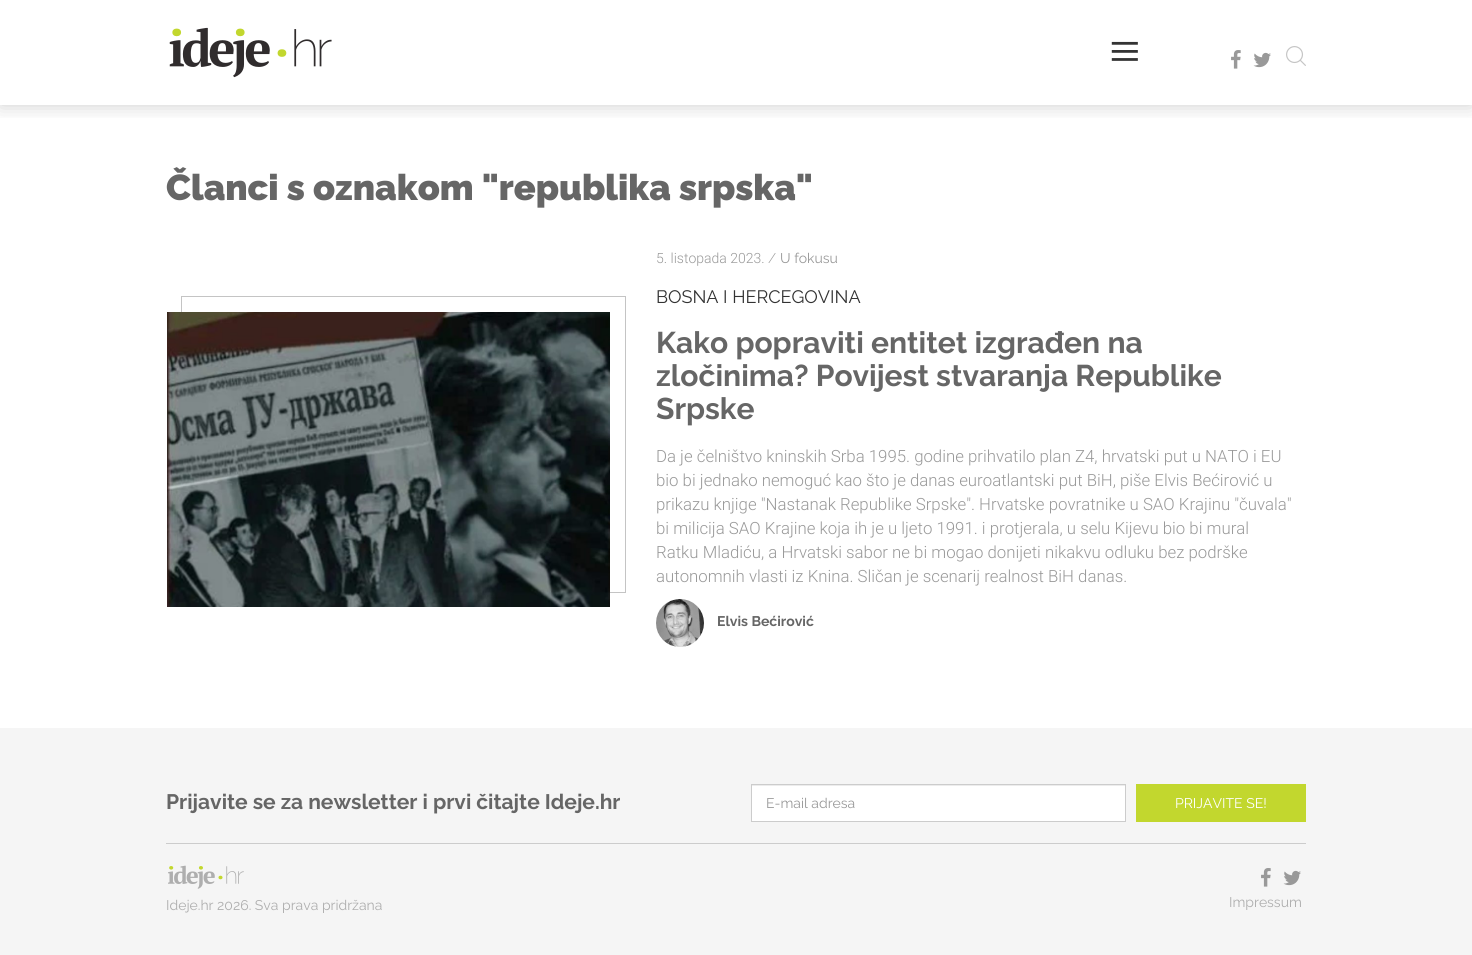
import math
import cairo

surface = cairo.ImageSurface(cairo.Format.RGB24, 1472, 955)
ctx = cairo.Context(surface)
options = cairo.FontOptions()
options.set_hint_metrics(cairo.HintMetrics.OFF)
options.set_hint_style(cairo.HintStyle.NONE)
ctx.set_font_options(options)
ctx.set_miter_limit(4)


def ink(r, g, b):
    ctx.set_source_rgb(r / 255, g / 255, b / 255)


def write(x, y, s, family, size, color, bold=False, italic=False):
    ctx.select_font_face(family, cairo.FontSlant.ITALIC if italic else cairo.FontSlant.NORMAL, cairo.FontWeight.BOLD if bold else cairo.FontWeight.NORMAL)
    ctx.set_font_size(size)
    ink(*color)
    ctx.move_to(x, y)
    ctx.show_text(s)


def block(x, y, w, h, *color):
    ink(*color)
    ctx.rectangle(x, y, w, h)
    ctx.fill()


def round_path(x, y, w, h, r):
    ctx.new_sub_path()
    for i, (u, v) in enumerate([(x + w - r, y + h - r), (x + r, y + h - r), (x + r, y + r), (x + w - r, y + r)]):
        ctx.arc(u, v, r, i * math.pi / 2, (i + 1) * math.pi / 2)
    ctx.close_path()


def blur_box(x, y, w, h, r, blur, alpha):
    ctx.push_group_with_content(cairo.Content.ALPHA)
    ctx.set_operator(cairo.Operator.SOURCE)
    for i in range(15, -16, -2):
        e = blur * i / 6
        if min(w, h) + 2 * e > 0:
            ctx.set_source_rgba(0, 0, 0, alpha * math.erfc((i - 1) / 8.5) / 2)
            round_path(x - e, y - e, w + 2 * e, h + 2 * e, max(0, min(r + e + blur * .6, min(w, h) / 2 + e)))
            ctx.fill()
    ctx.mask(ctx.pop_group())


def paste(path, x, y, w, h):
    ctx.save()
    ctx.set_source_surface(cairo.ImageSurface.create_from_png(path), x, y)
    ctx.rectangle(x, y, w, h)
    ctx.fill()
    ctx.restore()


s1 = dict(family="Liberation Serif", size=56, color=(51, 51, 51))
s2 = dict(family="Raleway Black", size=36, color=(102, 102, 102))
s3 = dict(family="Roboto Light", size=14, color=(153, 153, 153))
s4 = dict(family="Raleway Light", size=14, color=(153, 153, 153))
s5 = dict(family="Raleway", size=14, color=(153, 153, 153))
s6 = dict(family="Raleway", size=18, color=(51, 51, 51))
s7 = dict(family="Raleway", size=30, color=(102, 102, 102), bold=True)
s8 = dict(family="Roboto Light", size=16.8, color=(153, 153, 153))
s9 = dict(family="Raleway", size=14, color=(102, 102, 102), bold=True)
s10 = dict(family="Raleway", size=21, color=(102, 102, 102), bold=True)
s11 = dict(family="Raleway", size=14, color=(255, 255, 255))
s12 = dict(family="Raleway", size=14, color=(174, 174, 174))

ink(255, 255, 255)
ctx.paint()
ctx.save()
ctx.rectangle(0, 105, 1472, 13)
ctx.clip()
ink(0, 0, 0)
blur_box(0, 0, 1472, 105, 0, 10, 0.2)
ctx.restore()
paste("pic1.png", 169, 27, 163, 51)
write(1109, 70, "≡", **s1)
paste("pic2.png", 1231, 50, 10, 19)
paste("pic3.png", 1253, 52, 18, 16)
paste("pic4.png", 1286, 46, 20, 20)
write(166, 200, "Članci s oznakom \"republika srpska\"", **s2)
ctx.rectangle(181.5, 296.5, 444, 296)
ink(196, 196, 196)
ctx.set_line_width(1)
ctx.stroke()
paste("pic5.png", 167, 312, 443, 295)
write(656, 263, "5. listopada 2023.", **s3)
write(768, 263, "/", **s4)
write(780, 263, "U fokusu", **s5)
write(656, 303, "BOSNA I HERCEGOVINA", **s6)
write(656, 353, "Kako popraviti entitet izgrađen na", **s7)
write(656, 386, "zločinima? Povijest stvaranja Republike", **s7)
write(656, 419, "Srpske", **s7)
write(656, 462, "Da je čelništvo kninskih Srba 1995. godine prihvatilo plan Z4, hrvatski put u NATO i EU", **s8)
write(656, 486, "bio bi jednako nemoguć kao što je danas euroatlantski put BiH, piše Elvis Bećirović u", **s8)
write(656, 510, "prikazu knjige \"Nastanak Republike Srpske\". Hrvatske povratnike u SAO Krajinu \"čuvala\"", **s8)
write(656, 534, "bi milicija SAO Krajine koja ih je u ljeto 1991. i protjerala, u selu Kijevu bio bi mural", **s8)
write(656, 558, "Ratku Mladiću, a Hrvatski sabor ne bi mogao donijeti nikakvu odluku bez podrške", **s8)
write(656, 582, "autonomnih vlasti iz Knina. Sličan je scenarij realnost BiH danas.", **s8)
paste("pic6.png", 656, 599, 48, 48)
write(717, 626, "Elvis Bećirović", **s9)
block(0, 728, 1472, 227, 245, 245, 245)
write(166, 809, "Prijavite se za newsletter i prvi čitajte Ideje.hr", **s10)
block(752, 786, 373, 35, 255, 255, 255)
block(752, 785, 373, 1, 236, 236, 236)
ctx.rectangle(751.5, 784.5, 374, 37)
ink(204, 204, 204)
ctx.stroke()
write(766, 808, "E-mail adresa", **s5)
block(1136, 784, 170, 38, 194, 215, 46)
write(1175, 808, "PRIJAVITE SE!", **s11)
block(166, 843, 1140, 1, 204, 204, 204)
paste("pic7.png", 168, 865, 76, 24)
write(166, 910, "Ideje.hr 2026. Sva prava pridržana", **s12)
paste("pic8.png", 1261, 868, 10, 19)
paste("pic9.png", 1283, 870, 18, 16)
write(1229, 907, "Impressum", **s12)
surface.write_to_png("screenshot.png")
